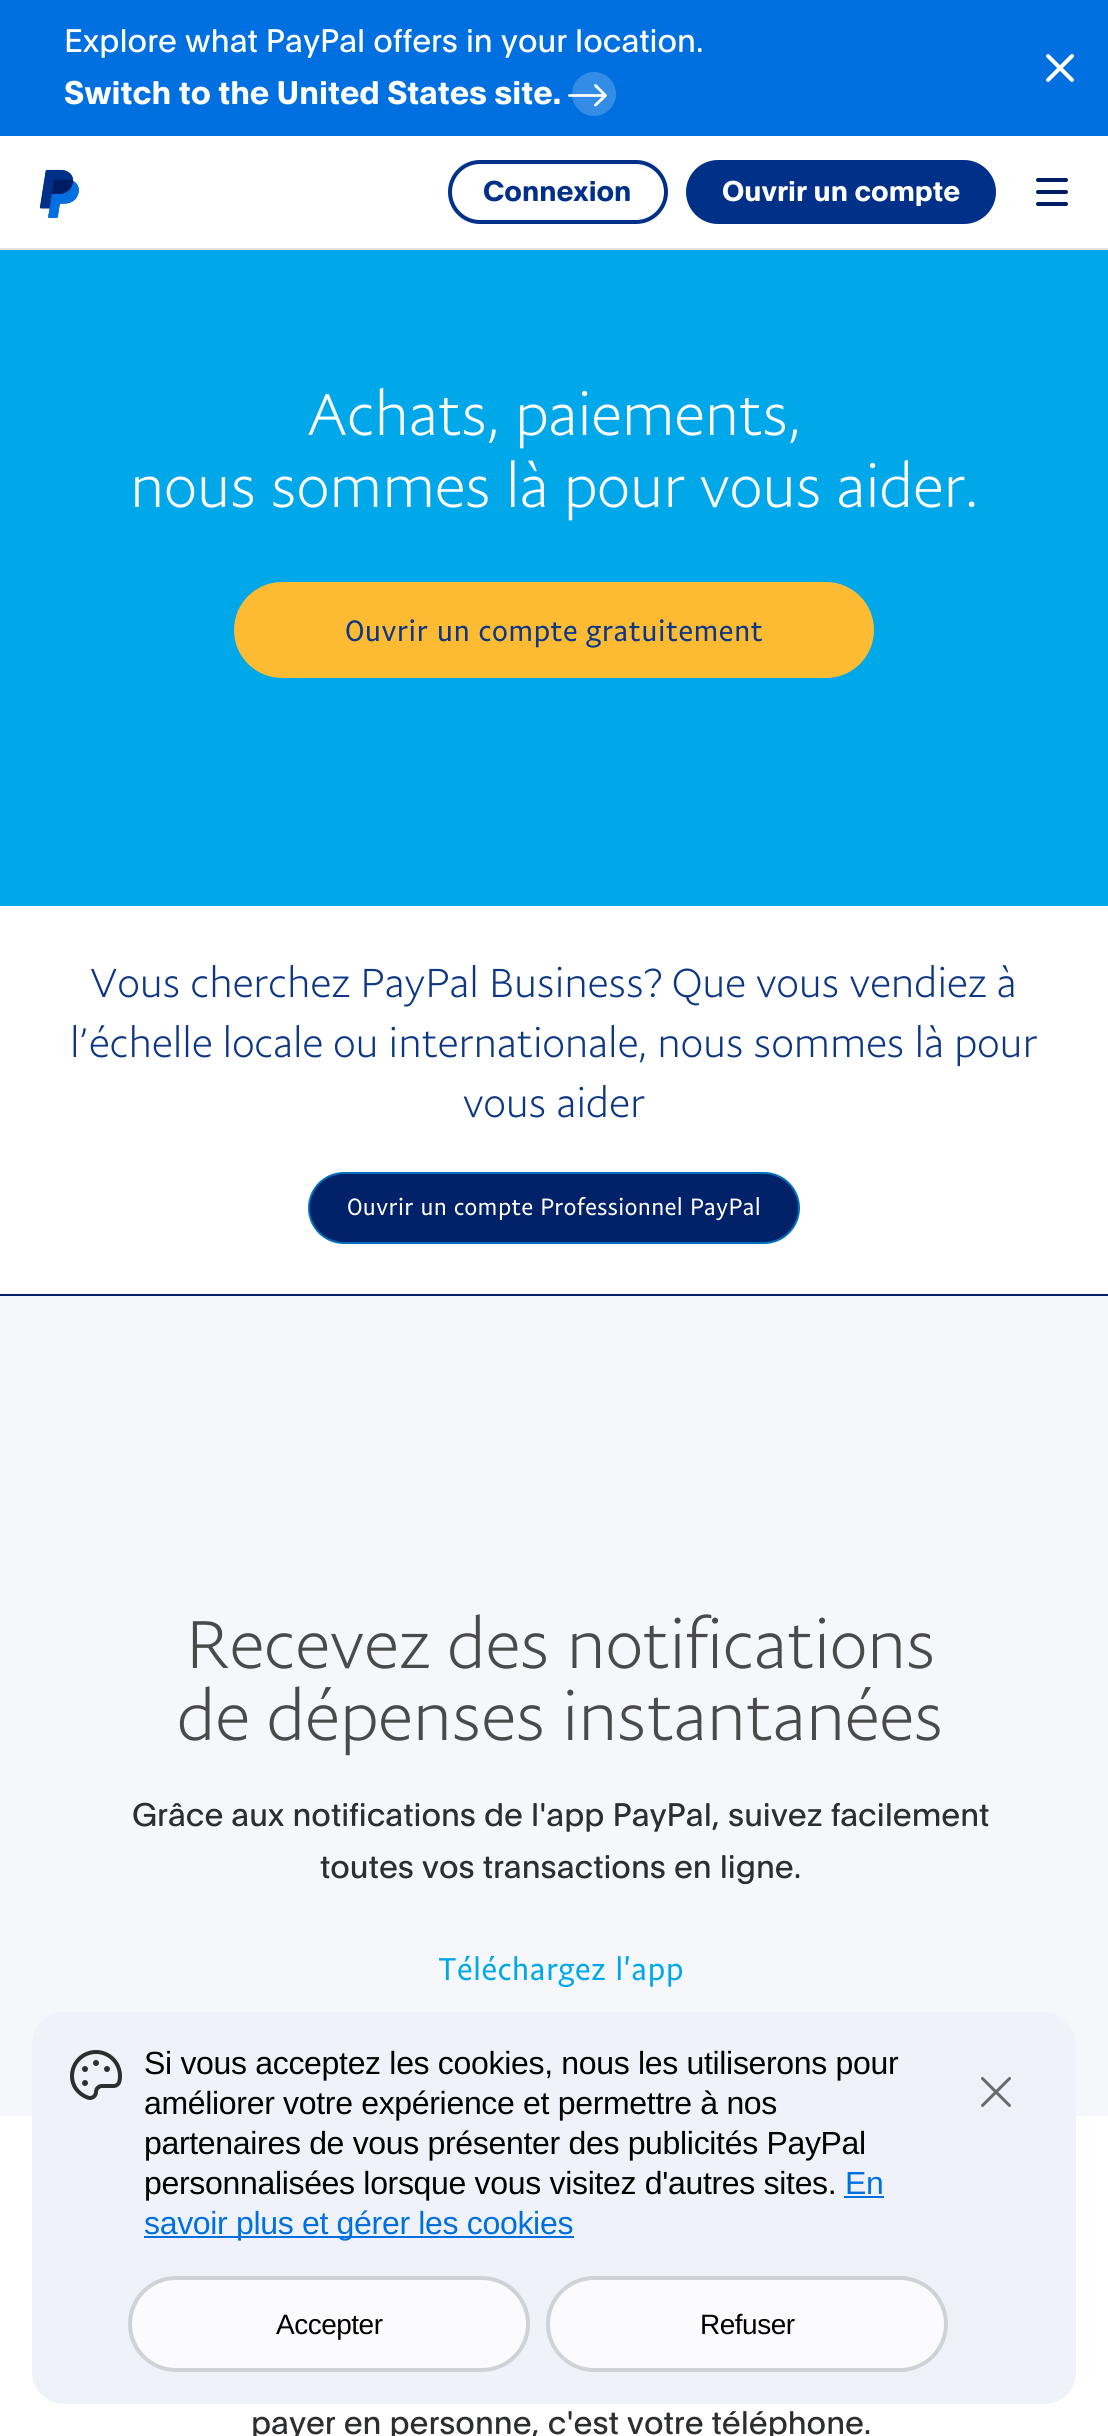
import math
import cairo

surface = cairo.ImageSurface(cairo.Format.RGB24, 1108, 2436)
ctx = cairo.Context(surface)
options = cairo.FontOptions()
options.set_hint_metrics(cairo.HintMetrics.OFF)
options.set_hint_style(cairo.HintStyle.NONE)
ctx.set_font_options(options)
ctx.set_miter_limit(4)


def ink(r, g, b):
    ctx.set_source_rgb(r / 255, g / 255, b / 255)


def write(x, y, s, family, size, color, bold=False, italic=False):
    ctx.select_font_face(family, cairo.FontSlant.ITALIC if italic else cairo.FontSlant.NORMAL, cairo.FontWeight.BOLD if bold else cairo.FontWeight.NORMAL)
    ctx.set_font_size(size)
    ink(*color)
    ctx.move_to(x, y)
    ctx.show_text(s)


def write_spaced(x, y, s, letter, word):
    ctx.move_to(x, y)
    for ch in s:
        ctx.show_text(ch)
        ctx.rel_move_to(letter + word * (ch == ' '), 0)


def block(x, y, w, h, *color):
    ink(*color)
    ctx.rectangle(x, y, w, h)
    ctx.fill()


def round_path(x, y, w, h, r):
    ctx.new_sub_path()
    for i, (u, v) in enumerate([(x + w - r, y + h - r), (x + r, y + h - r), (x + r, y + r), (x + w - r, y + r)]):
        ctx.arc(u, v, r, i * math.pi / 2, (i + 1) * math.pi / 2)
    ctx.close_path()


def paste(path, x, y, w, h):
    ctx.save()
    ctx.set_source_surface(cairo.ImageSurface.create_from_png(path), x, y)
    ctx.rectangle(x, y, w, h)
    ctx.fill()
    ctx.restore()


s1 = dict(family="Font", size=32, color=(255, 255, 255))
s2 = dict(family="Font", size=32, color=(255, 255, 255), bold=True)
s3 = dict(family="Font", size=28, color=(0, 48, 135), bold=True)
s4 = dict(family="Font", size=28, color=(255, 255, 255), bold=True)
s5 = dict(family="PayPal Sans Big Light", size=60, color=(255, 255, 255))
s6 = dict(family="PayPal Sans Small", size=30, color=(13, 54, 133))
s7 = dict(family="PayPal Sans Big Light", size=41.1, color=(13, 54, 133))
s8 = dict(family="PayPal Sans Small", size=24, color=(255, 255, 255))
s9 = dict(family="PayPal Sans Big Light", size=68.5, color=(74, 74, 74))
s10 = dict(family="Font", size=32, color=(44, 46, 47))
s11 = dict(family="PayPal Sans Small", size=32, color=(0, 168, 234))

ink(255, 255, 255)
ctx.paint()
block(0, 0, 1108, 136, 0, 112, 224)
write(64, 52, "Explore what PayPal offers in your location.", **s1)
write(64, 104, "Switch to the United States site.", **s2)
ctx.new_path()
ctx.move_to(604.5, 95.5)
ctx.line_to(569.5, 95.5)
ctx.move_to(595.5, 85.5)
ctx.line_to(605.5, 95.5)
ctx.line_to(595.5, 105)
ctx.set_line_width(2.8)
ctx.set_line_cap(cairo.LineCap.ROUND)
ctx.set_line_join(cairo.LineJoin.ROUND)
ctx.stroke()
ctx.set_source_rgba(1, 1, 1, 0.2)
ctx.arc(594, 94, 22, 0, 2 * math.pi)
ctx.fill()
paste("pic1.png", 1046, 54, 28, 28)
paste("pic2.png", 40, 169, 39, 49)
round_path(450, 162, 216, 60, 30)
ink(0, 48, 135)
ctx.set_line_width(4)
ctx.set_line_cap(cairo.LineCap.BUTT)
ctx.set_line_join(cairo.LineJoin.MITER)
ctx.stroke()
write(483, 201, "Connexion", **s3)
round_path(688, 162, 306, 60, 30)
ctx.fill_preserve()
ctx.stroke()
write(722, 201, "Ouvrir un compte", **s4)
paste("pic3.png", 1036, 178, 32, 28)
block(0, 248, 1108, 2, 230, 224, 217)
block(0, 250, 1108, 656, 0, 168, 234)
write(307, 435, "Achats, paiements,", **s5)
write(130, 507, "nous sommes là pour vous aider.", **s5)
ink(253, 187, 51)
round_path(234, 582, 640, 96, 48)
ctx.fill()
write(345, 641, "Ouvrir un compte gratuitement", **s6)
block(0, 1294, 1108, 2, 1, 33, 105)
write(90, 997, "Vous cherchez PayPal Business? Que vous vendiez à", **s7)
write(70, 1057, "l’échelle locale ou internationale, nous sommes là pour", **s7)
write(463, 1117, "vous aider", **s7)
ink(1, 33, 105)
round_path(309, 1173, 490, 70, 35)
ctx.fill_preserve()
ink(0, 112, 186)
ctx.set_line_width(2)
ctx.stroke()
write(347, 1215, "Ouvrir un compte Professionnel PayPal", **s8)
block(0, 1296, 1108, 820, 245, 247, 250)
write(186, 1668, "Recevez des notifications", **s9)
write(177, 1740, "de dépenses instantanées", **s9)
write(132, 1826, "Grâce aux notifications de l'app PayPal, suivez facilement", **s10)
write(320, 1878, "toutes vos transactions en ligne.", **s10)
write(438, 1980, "Téléchargez l'app", **s11)
write(251, 2434, "payer en personne, c'est votre téléphone.", **s10)
ink(240, 242, 249)
round_path(32, 2012, 1044, 392, 32)
ctx.fill()
paste("pic4.png", 70, 2050, 52, 50)
ctx.select_font_face("Liberation Sans")
ink(0, 0, 0)
write_spaced(144, 2074, "Si vous acceptez les cookies, nous les utiliserons pour", -0.32, 0)
write_spaced(144, 2114, "améliorer votre expérience et permettre à nos", -0.32, 0)
write_spaced(144, 2154, "partenaires de vous présenter des publicités PayPal", -0.32, 0)
write_spaced(144, 2194, "personnalisées lorsque vous visitez d'autres sites.", -0.32, 0)
ink(0, 112, 224)
write_spaced(845, 2194, "En", -0.32, 0)
block(844, 2196, 40, 2, 0, 112, 224)
block(144, 2236, 430, 2, 0, 112, 224)
write_spaced(144, 2234, "savoir plus et gérer les cookies", -0.32, 0)
ink(251, 251, 253)
round_path(130, 2278, 398, 92, 46)
ctx.fill_preserve()
ink(207, 211, 216)
ctx.set_line_width(4)
ctx.stroke()
ctx.set_font_size(28)
ink(0, 0, 0)
write_spaced(276, 2334, "Accepter", -0.5, 0)
ink(251, 251, 253)
round_path(548, 2278, 398, 92, 46)
ctx.fill_preserve()
ink(207, 211, 216)
ctx.stroke()
ink(0, 0, 0)
write_spaced(700, 2334, "Refuser", -0.5, 0)
paste("pic5.png", 981, 2077, 30, 30)
surface.write_to_png("screenshot.png")
